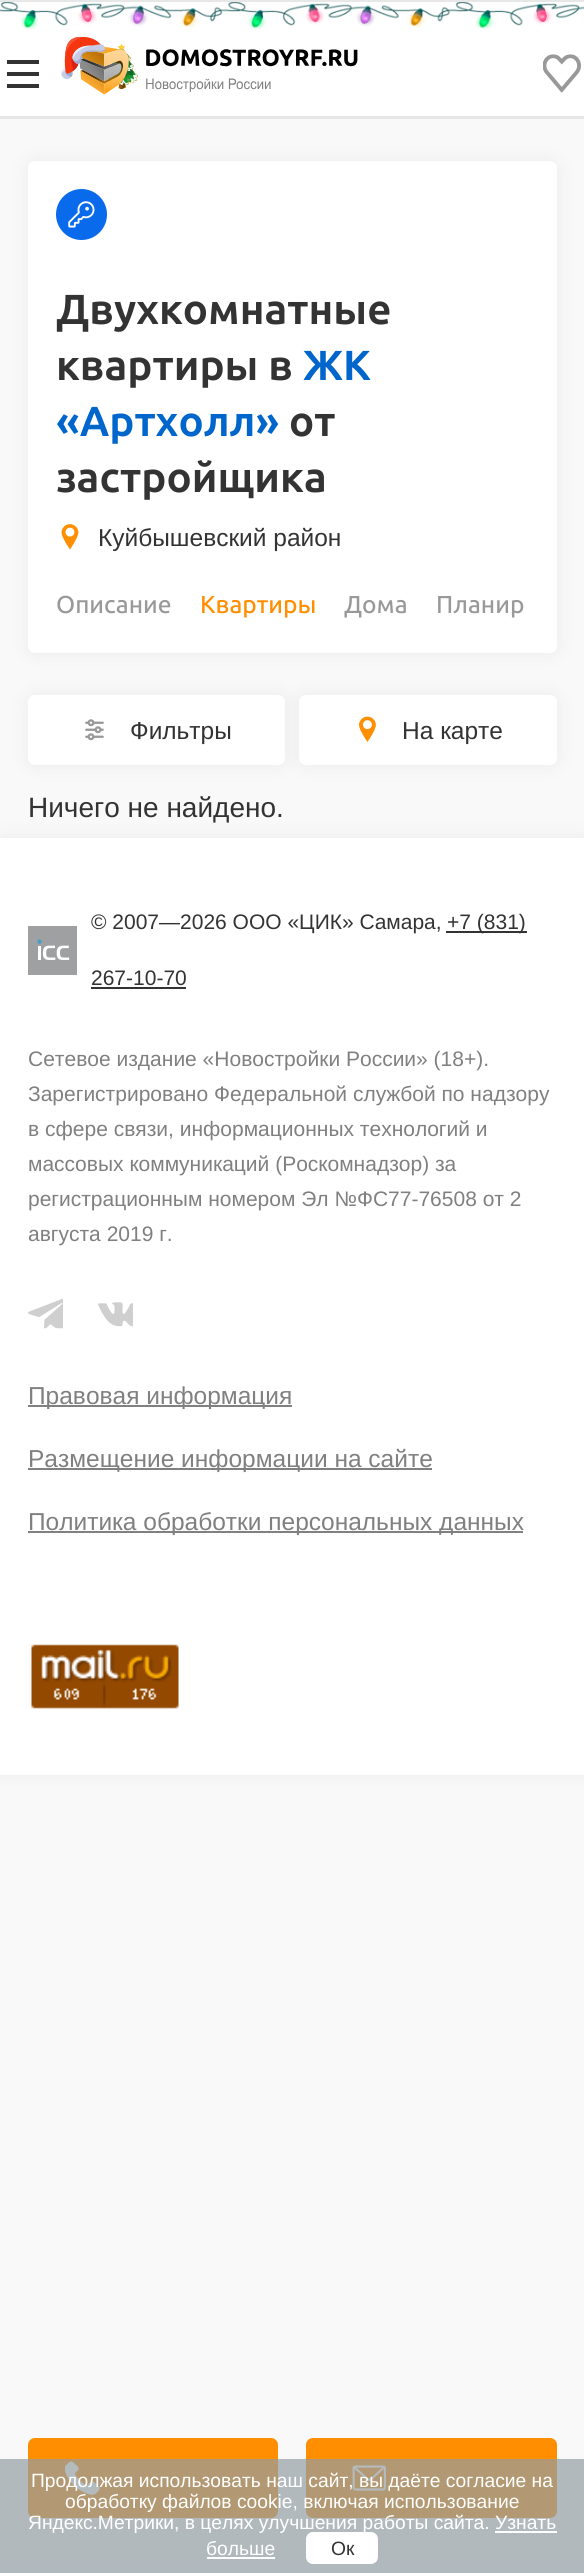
import math
import cairo

surface = cairo.ImageSurface(cairo.Format.RGB24, 584, 2573)
ctx = cairo.Context(surface)
options = cairo.FontOptions()
options.set_hint_metrics(cairo.HintMetrics.OFF)
options.set_hint_style(cairo.HintStyle.NONE)
ctx.set_font_options(options)
ctx.set_miter_limit(4)


def ink(r, g, b):
    ctx.set_source_rgb(r / 255, g / 255, b / 255)


def write(x, y, s, family, size, color, bold=False, italic=False):
    ctx.select_font_face(family, cairo.FontSlant.ITALIC if italic else cairo.FontSlant.NORMAL, cairo.FontWeight.BOLD if bold else cairo.FontWeight.NORMAL)
    ctx.set_font_size(size)
    ink(*color)
    ctx.move_to(x, y)
    ctx.show_text(s)


def block(x, y, w, h, *color):
    ink(*color)
    ctx.rectangle(x, y, w, h)
    ctx.fill()


def round_path(x, y, w, h, r):
    ctx.new_sub_path()
    for i, (u, v) in enumerate([(x + w - r, y + h - r), (x + r, y + h - r), (x + r, y + r), (x + w - r, y + r)]):
        ctx.arc(u, v, r, i * math.pi / 2, (i + 1) * math.pi / 2)
    ctx.close_path()


def blur_box(x, y, w, h, r, blur, alpha):
    ctx.push_group_with_content(cairo.Content.ALPHA)
    ctx.set_operator(cairo.Operator.SOURCE)
    for i in range(15, -16, -2):
        e = blur * i / 6
        if min(w, h) + 2 * e > 0:
            ctx.set_source_rgba(0, 0, 0, alpha * math.erfc((i - 1) / 8.5) / 2)
            round_path(x - e, y - e, w + 2 * e, h + 2 * e, max(0, min(r + e + blur * .6, min(w, h) / 2 + e)))
            ctx.fill()
    ctx.mask(ctx.pop_group())


def paste(path, x, y, w, h):
    ctx.save()
    ctx.set_source_surface(cairo.ImageSurface.create_from_png(path), x, y)
    ctx.rectangle(x, y, w, h)
    ctx.fill()
    ctx.restore()


s1 = dict(family="Ubuntu", size=42, color=(51, 51, 51), bold=True)
s2 = dict(family="Ubuntu", size=42, color=(0, 102, 204), bold=True)
s3 = dict(family="Liberation Sans", size=24.5, color=(51, 51, 51))
s4 = dict(family="Ubuntu Medium", size=24.5, color=(153, 153, 153))
s5 = dict(family="Ubuntu Medium", size=24.5, color=(255, 142, 1))
s6 = dict(family="Liberation Sans", size=28, color=(51, 51, 51))
s7 = dict(family="Liberation Sans", size=21, color=(51, 51, 51))
s8 = dict(family="Liberation Sans", size=21, color=(128, 128, 128))
s9 = dict(family="Liberation Sans", size=24.5, color=(128, 128, 128))
s10 = dict(family="Liberation Sans", size=19.25, color=(255, 255, 255))
s11 = dict(family="Liberation Sans", size=19.25, color=(51, 51, 51))

ink(249, 249, 249)
ctx.paint()
block(0, 2, 584, 114, 255, 255, 255)
block(0, 0, 584, 2, 231, 231, 231)
paste("pic1.png", 0, 2, 584, 28)
block(7, 72, 32, 4, 51, 51, 51)
block(7, 60, 32, 4, 51, 51, 51)
block(7, 84, 32, 4, 51, 51, 51)
paste("pic3.png", 107, 44, 31, 45)
paste("pic4.png", 79, 46, 279, 49)
paste("pic2.png", 61, 37, 44, 42)
paste("pic5.png", 543, 54, 38, 39)
block(0, 116, 584, 3, 231, 231, 231)
ink(0, 0, 0)
blur_box(28, 161, 529, 492, 7, 10.5, 0.06)
ink(255, 255, 255)
round_path(28, 161, 529, 492, 7)
ctx.fill()
paste("pic6.png", 56, 189, 51, 51)
write(56, 324, "Двухкомнатные", **s1)
write(56, 380, "квартиры в", **s1)
write(303, 380, "ЖК", **s2)
write(56, 436, "«Артхолл»", **s2)
write(289, 436, "от", **s1)
write(56, 492, "застройщика", **s1)
paste("pic7.png", 61, 524, 18, 26)
write(98, 546, "Куйбышевский район", **s3)
write(56, 613, "Описание", **s4)
write(200, 613, "Квартиры", **s5)
write(344, 613, "Дома", **s4)
write(436, 613, "Планир", **s4)
ink(0, 0, 0)
blur_box(28, 695, 257, 70, 7, 10.5, 0.06)
ink(255, 255, 255)
round_path(28, 695, 257, 70, 7)
ctx.fill()
paste("pic8.png", 85, 719, 19, 22)
write(130, 739, "Фильтры", **s3)
ink(0, 0, 0)
blur_box(299, 695, 258, 70, 7, 10.5, 0.06)
ink(255, 255, 255)
round_path(299, 695, 258, 70, 7)
ctx.fill()
paste("pic9.png", 359, 716, 17, 26)
write(402, 739, "На карте", **s3)
ink(0, 0, 0)
blur_box(0, 838, 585, 937, 0, 10.5, 0.06)
write(28, 817, "Ничего не найдено.", **s6)
ink(255, 142, 1)
round_path(28, 2438, 250, 80, 7)
ctx.fill()
paste("pic10.png", 65, 2461, 35, 34)
round_path(306, 2438, 251, 80, 7)
ctx.fill()
paste("pic11.png", 352, 2465, 34, 26)
block(0, 838, 584, 937, 255, 255, 255)
paste("pic12.png", 28, 926, 49, 49)
write(91, 929, "© 2007—2026 ООО «ЦИК» Самара,", **s7)
block(446, 931, 81, 2, 51, 51, 51)
write(447, 929, "+7 (831)", **s7)
write(91, 985, "267-10-70", **s7)
block(91, 987, 95, 2, 51, 51, 51)
write(28, 1066, "Сетевое издание «Новостройки России» (18+).", **s8)
write(28, 1101, "Зарегистрировано Федеральной службой по надзору", **s8)
write(28, 1136, "в сфере связи, информационных технологий и", **s8)
write(28, 1171, "массовых коммуникаций (Роскомнадзор) за", **s8)
write(28, 1206, "регистрационным номером Эл №ФС77-76508 от 2", **s8)
write(28, 1241, "августа 2019 г.", **s8)
paste("pic13.png", 28, 1298, 35, 31)
paste("pic14.png", 98, 1302, 35, 25)
block(28, 1405, 264, 2, 128, 128, 128)
write(28, 1404, "Правовая информация", **s9)
block(28, 1468, 404, 2, 128, 128, 128)
write(28, 1467, "Размещение информации на сайте", **s9)
block(28, 1531, 495, 2, 128, 128, 128)
write(28, 1530, "Политика обработки персональных данных", **s9)
paste("pic15.png", 31, 1644, 148, 65)
block(0, 2562, 584, 11, 241, 249, 252)
ctx.set_source_rgba(0.576, 0.624, 0.643, 0.7)
ctx.rectangle(0, 2459, 584, 114)
ctx.fill()
write(31, 2487, "Продолжая использовать наш сайт, вы даёте согласие на", **s10)
write(65, 2508, "обработку файлов cookie, включая использование", **s10)
write(28, 2529, "Яндекс.Метрики, в целях улучшения работы сайта. Узнать", **s10)
write(206, 2555, "больше", **s10)
block(495, 2531, 62, 2, 255, 255, 255)
block(207, 2557, 68, 2, 255, 255, 255)
round_path(306, 2532, 72, 32, 7)
ctx.fill()
write(331, 2555, "Ок", **s11)
surface.write_to_png("screenshot.png")
